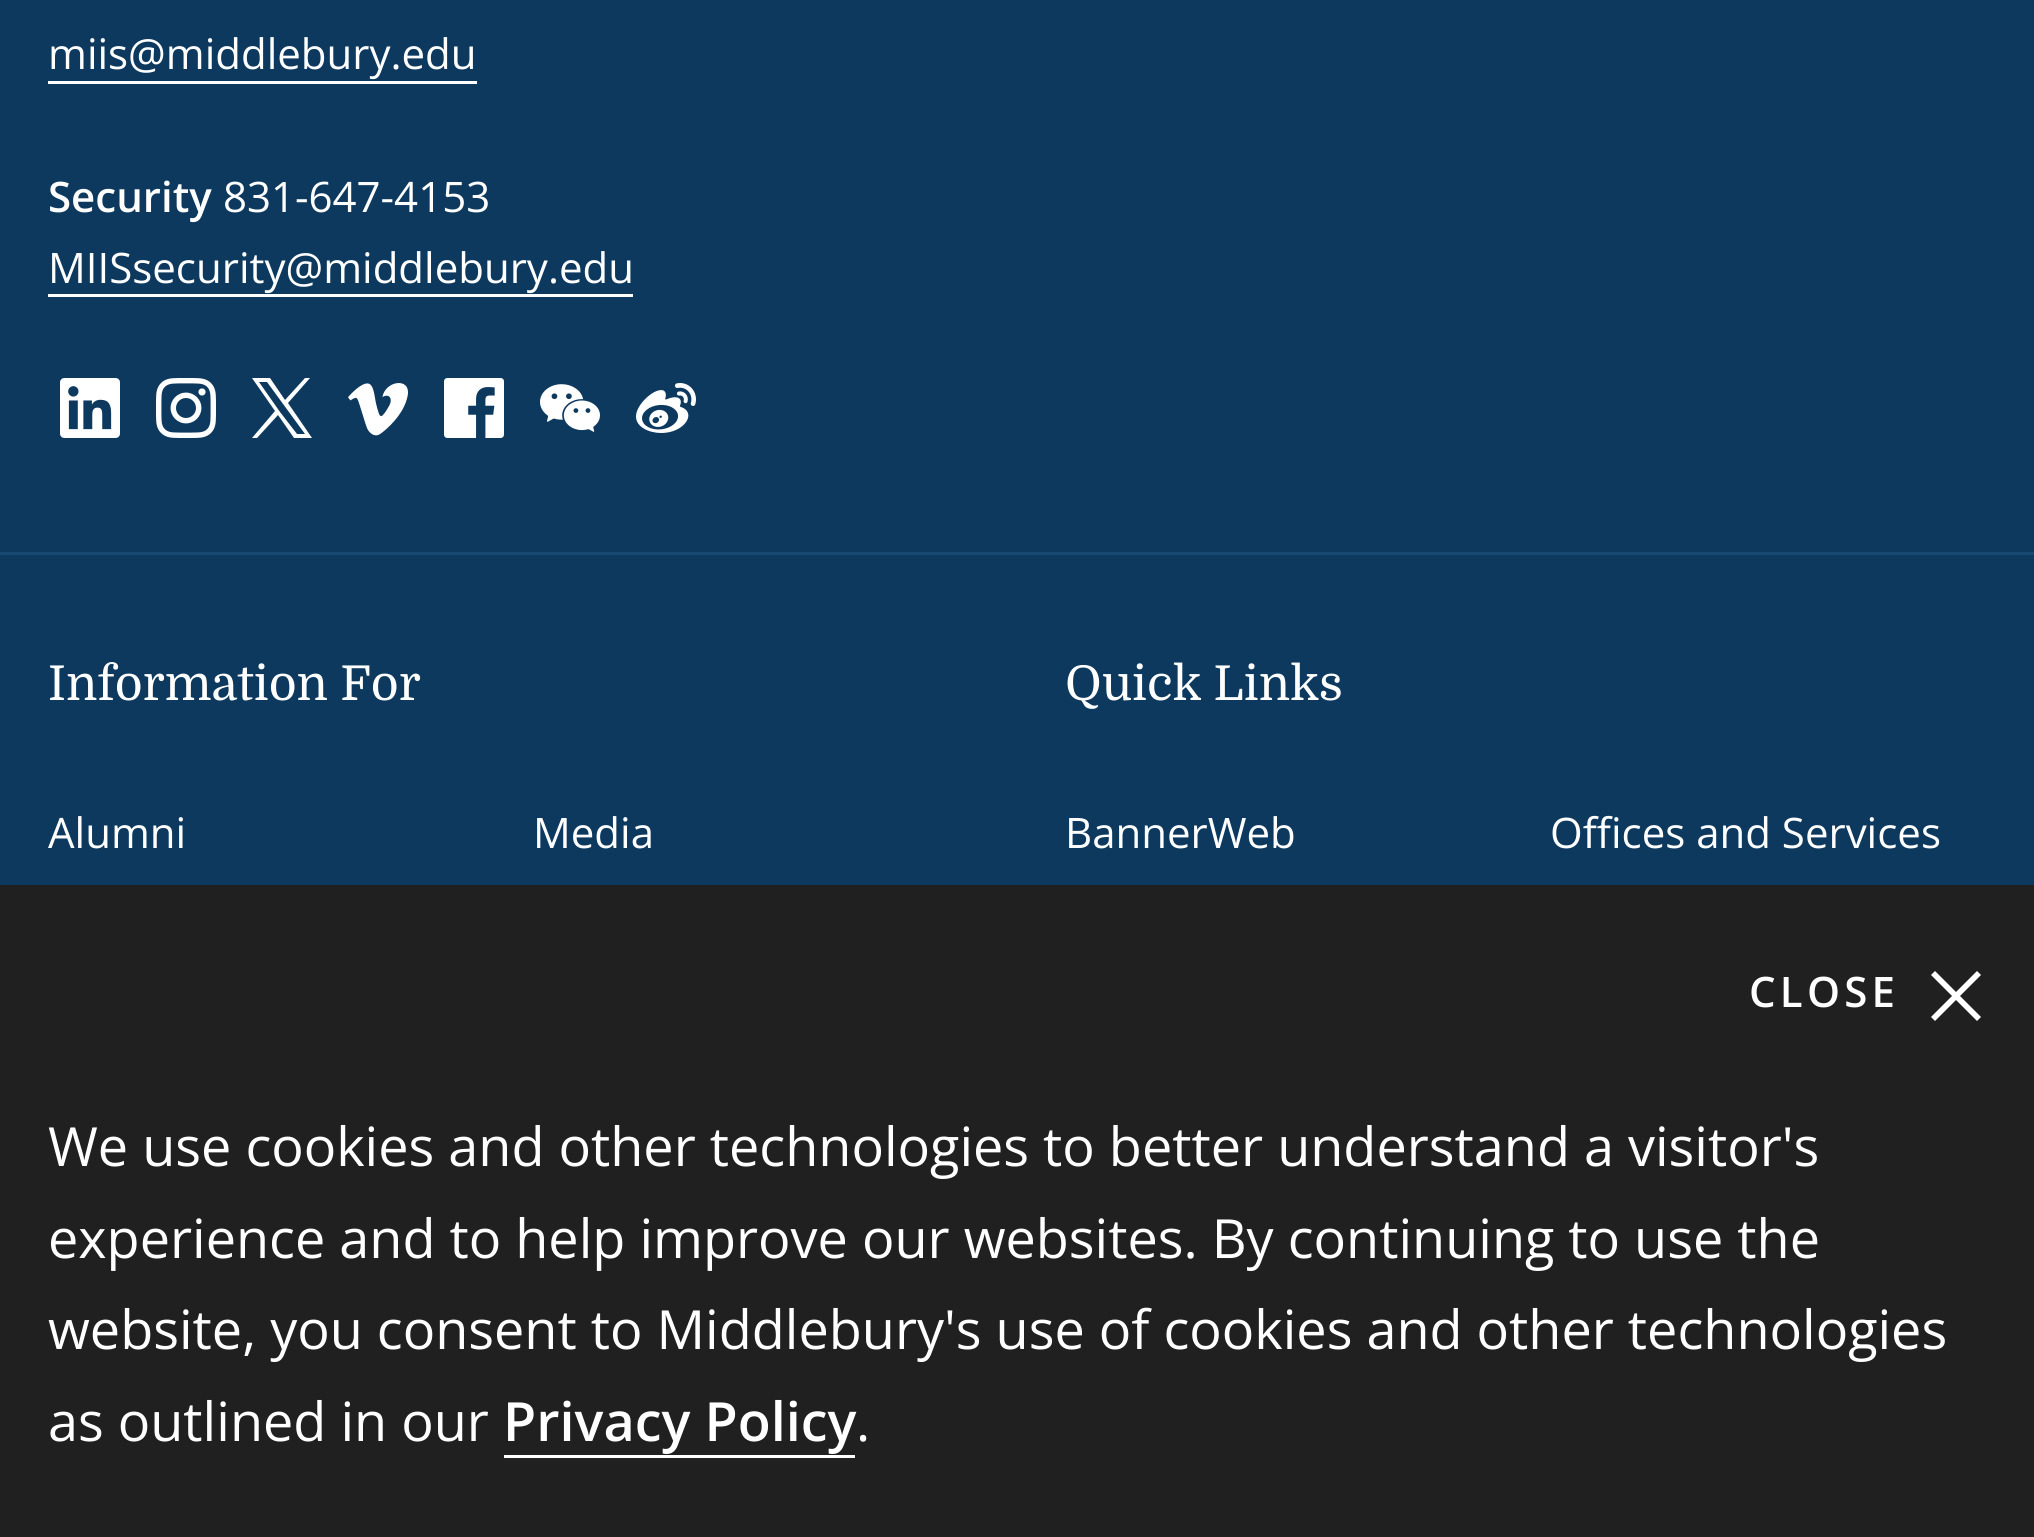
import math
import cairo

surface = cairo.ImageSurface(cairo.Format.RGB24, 2034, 1537)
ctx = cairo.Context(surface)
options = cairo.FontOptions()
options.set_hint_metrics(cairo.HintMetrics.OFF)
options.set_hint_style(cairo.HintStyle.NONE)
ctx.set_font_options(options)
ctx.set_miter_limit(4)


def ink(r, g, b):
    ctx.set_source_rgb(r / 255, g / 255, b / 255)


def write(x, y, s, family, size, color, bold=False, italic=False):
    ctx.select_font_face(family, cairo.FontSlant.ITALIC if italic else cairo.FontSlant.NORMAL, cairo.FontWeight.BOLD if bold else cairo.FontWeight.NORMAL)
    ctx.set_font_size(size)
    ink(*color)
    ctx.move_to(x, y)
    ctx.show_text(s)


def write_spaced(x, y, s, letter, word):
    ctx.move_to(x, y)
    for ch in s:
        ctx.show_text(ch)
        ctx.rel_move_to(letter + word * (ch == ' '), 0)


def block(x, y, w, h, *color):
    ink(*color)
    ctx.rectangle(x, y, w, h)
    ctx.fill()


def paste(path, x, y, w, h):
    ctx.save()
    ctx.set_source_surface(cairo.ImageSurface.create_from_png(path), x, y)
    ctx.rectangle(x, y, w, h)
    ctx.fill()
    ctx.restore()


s1 = dict(family="Open Sans", size=42, color=(255, 255, 255))
s2 = dict(family="Open Sans SemiBold", size=42, color=(255, 255, 255))
s3 = dict(family="Domine", size=48, color=(255, 255, 255))
s4 = dict(family="Open Sans", size=54, color=(255, 255, 255))
s5 = dict(family="Open Sans SemiBold", size=54, color=(255, 255, 255))

ink(13, 57, 95)
ctx.paint()
write(48, 69, "miis@middlebury.edu", **s1)
block(48, 81, 429, 3, 255, 255, 255)
write(48, 212, "Security", **s2)
write(223, 212, "831-647-4153", **s1)
write(48, 283, "MIISsecurity@middlebury.edu", **s1)
block(48, 294, 585, 3, 255, 255, 255)
paste("pic1.png", 60, 378, 60, 60)
paste("pic2.png", 156, 378, 60, 60)
ctx.set_fill_rule(cairo.FillRule.EVEN_ODD)
ctx.new_path()
ctx.move_to(288, 403)
ctx.line_to(310, 378)
ctx.line_to(305, 378)
ctx.line_to(285, 400)
ctx.line_to(270, 378)
ctx.line_to(252, 378)
ctx.line_to(275, 411)
ctx.line_to(252, 438)
ctx.line_to(257, 438)
ctx.line_to(278, 415)
ctx.line_to(294, 438)
ctx.line_to(312, 438)
ctx.close_path()
ctx.move_to(280, 412)
ctx.line_to(259, 382)
ctx.line_to(267, 382)
ctx.line_to(305, 434)
ctx.line_to(297, 434)
ctx.close_path()
ctx.fill()
paste("pic3.png", 348, 383, 60, 53)
paste("pic4.png", 444, 378, 60, 60)
paste("pic5.png", 540, 384, 60, 48)
paste("pic6.png", 636, 383, 60, 50)
block(0, 552, 2034, 3, 23, 72, 114)
write(48, 700, "Information For", **s3)
write(48, 848, "Alumni", **s1)
write(533, 848, "Media", **s1)
write(1065, 700, "Quick Links", **s3)
write(1065, 848, "BannerWeb", **s1)
write(1550, 848, "Offices and Services", **s1)
block(0, 885, 2034, 652, 32, 32, 32)
ctx.select_font_face("Open Sans SemiBold")
ink(255, 255, 255)
write_spaced(1749, 1007, "CLOSE", 4.25, 0)
ctx.new_path()
ctx.move_to(1960, 996)
ctx.line_to(1981, 1017)
ctx.line_to(1977, 1021)
ctx.line_to(1956, 1000)
ctx.line_to(1935, 1021)
ctx.line_to(1931, 1017)
ctx.line_to(1952, 996)
ctx.line_to(1931, 975)
ctx.line_to(1935, 971)
ctx.line_to(1956, 992)
ctx.line_to(1977, 971)
ctx.line_to(1981, 975)
ctx.close_path()
ctx.fill()
write(48, 1166, "We use cookies and other technologies to better understand a visitor's", **s4)
write(48, 1258, "experience and to help improve our websites. By continuing to use the", **s4)
write(48, 1349, "website, you consent to Middlebury's use of cookies and other technologies", **s4)
write(48, 1441, "as outlined in our", **s4)
write(503, 1441, "Privacy Policy", **s5)
block(504, 1455, 351, 3, 255, 255, 255)
write(856, 1441, ".", **s4)
surface.write_to_png("screenshot.png")
